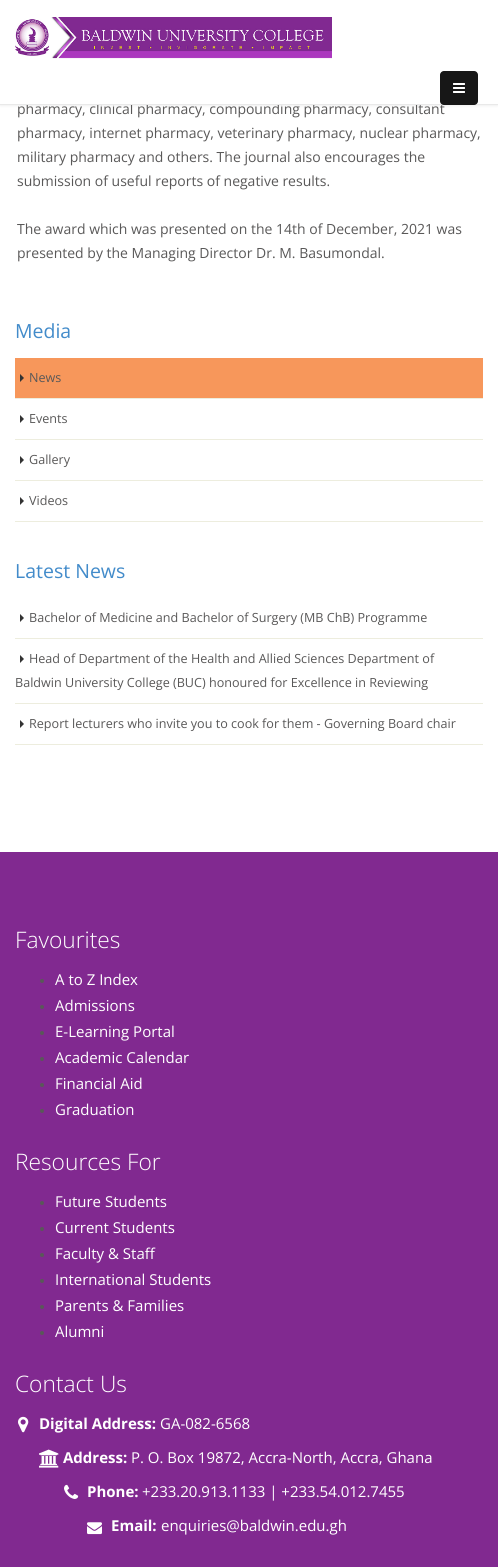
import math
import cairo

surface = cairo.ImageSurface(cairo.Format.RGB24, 498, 1567)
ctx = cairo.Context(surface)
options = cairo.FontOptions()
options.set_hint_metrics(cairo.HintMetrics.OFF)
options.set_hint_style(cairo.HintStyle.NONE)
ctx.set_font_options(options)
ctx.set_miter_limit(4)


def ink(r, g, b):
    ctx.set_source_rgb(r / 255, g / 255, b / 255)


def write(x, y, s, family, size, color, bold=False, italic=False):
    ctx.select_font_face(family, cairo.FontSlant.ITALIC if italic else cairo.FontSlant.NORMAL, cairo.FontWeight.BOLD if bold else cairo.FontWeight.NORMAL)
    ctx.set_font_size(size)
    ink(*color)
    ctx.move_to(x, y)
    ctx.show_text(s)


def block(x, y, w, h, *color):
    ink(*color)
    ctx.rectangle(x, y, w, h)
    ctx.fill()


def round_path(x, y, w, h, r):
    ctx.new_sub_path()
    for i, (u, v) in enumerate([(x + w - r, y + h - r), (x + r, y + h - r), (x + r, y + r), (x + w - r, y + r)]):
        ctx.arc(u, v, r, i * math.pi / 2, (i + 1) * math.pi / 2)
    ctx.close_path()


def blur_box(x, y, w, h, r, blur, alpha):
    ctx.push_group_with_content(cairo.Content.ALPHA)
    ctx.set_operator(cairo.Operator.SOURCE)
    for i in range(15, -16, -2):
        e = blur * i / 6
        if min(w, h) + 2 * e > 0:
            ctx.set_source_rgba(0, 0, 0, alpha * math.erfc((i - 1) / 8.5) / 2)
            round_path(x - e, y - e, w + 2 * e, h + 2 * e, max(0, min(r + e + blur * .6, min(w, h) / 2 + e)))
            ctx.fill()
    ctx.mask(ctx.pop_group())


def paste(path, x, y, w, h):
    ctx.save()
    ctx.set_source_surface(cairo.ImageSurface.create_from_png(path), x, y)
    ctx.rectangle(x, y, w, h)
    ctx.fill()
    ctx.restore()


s1 = dict(family="Open Sans", size=14, color=(89, 88, 88))
s2 = dict(family="Open Sans", size=19.5, color=(66, 139, 202))
s3 = dict(family="Open Sans", size=12.6, color=(89, 88, 88))
s4 = dict(family="Open Sans Light", size=22.75, color=(255, 255, 255))
s5 = dict(family="Open Sans", size=15, color=(255, 255, 255))
s6 = dict(family="Open Sans", size=15, color=(255, 255, 255), bold=True)

ink(255, 255, 255)
ctx.paint()
ink(0, 0, 0)
blur_box(0, -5, 498, 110, 0, 1.5, 0.1)
write(17, 114, "pharmacy, clinical pharmacy, compounding pharmacy, consultant", **s1)
block(0, 0, 498, 104, 255, 255, 255)
block(0, 104, 498, 1, 233, 233, 233)
paste("pic1.png", 15, 17, 317, 42)
ink(23, 23, 23)
round_path(440, 71, 38, 34, 4)
ctx.fill()
paste("pic2.png", 453, 83, 12, 10)
write(17, 138, "pharmacy, internet pharmacy, veterinary pharmacy, nuclear pharmacy,", **s1)
write(17, 162, "military pharmacy and others. The journal also encourages the", **s1)
write(17, 186, "submission of useful reports of negative results.", **s1)
write(17, 234, "The award which was presented on the 14th of December, 2021 was", **s1)
write(17, 258, "presented by the Managing Director Dr. M. Basumondal.", **s1)
write(15, 338, "Media", **s2)
block(15, 358, 468, 40, 247, 151, 91)
block(15, 398, 468, 1, 237, 237, 222)
ink(51, 51, 51)
ctx.new_path()
ctx.move_to(20, 382)
ctx.line_to(20, 374)
ctx.line_to(24, 378)
ctx.close_path()
ctx.fill()
write(29, 382, "News", **s3)
block(15, 439, 468, 1, 237, 237, 222)
ink(51, 51, 51)
ctx.new_path()
ctx.move_to(20, 423)
ctx.line_to(20, 415)
ctx.line_to(24, 419)
ctx.close_path()
ctx.fill()
write(29, 423, "Events", **s3)
block(15, 480, 468, 1, 237, 237, 222)
ink(51, 51, 51)
ctx.new_path()
ctx.move_to(20, 464)
ctx.line_to(20, 456)
ctx.line_to(24, 460)
ctx.close_path()
ctx.fill()
write(29, 464, "Gallery", **s3)
block(15, 521, 468, 1, 237, 237, 222)
ink(51, 51, 51)
ctx.new_path()
ctx.move_to(20, 505)
ctx.line_to(20, 497)
ctx.line_to(24, 501)
ctx.close_path()
ctx.fill()
write(29, 505, "Videos", **s3)
write(15, 578, "Latest News", **s2)
block(15, 638, 468, 1, 237, 237, 222)
ink(51, 51, 51)
ctx.new_path()
ctx.move_to(20, 622)
ctx.line_to(20, 614)
ctx.line_to(24, 618)
ctx.close_path()
ctx.fill()
write(29, 622, "Bachelor of Medicine and Bachelor of Surgery (MB ChB) Programme", **s3)
block(15, 703, 468, 1, 237, 237, 222)
ink(51, 51, 51)
ctx.new_path()
ctx.move_to(20, 663)
ctx.line_to(20, 655)
ctx.line_to(24, 659)
ctx.close_path()
ctx.fill()
write(29, 663, "Head of Department of the Health and Allied Sciences Department of", **s3)
write(15, 687, "Baldwin University College (BUC) honoured for Excellence in Reviewing", **s3)
block(15, 744, 468, 1, 237, 237, 222)
ink(51, 51, 51)
ctx.new_path()
ctx.move_to(20, 728)
ctx.line_to(20, 720)
ctx.line_to(24, 724)
ctx.close_path()
ctx.fill()
write(29, 728, "Report lecturers who invite you to cook for them - Governing Board chair", **s3)
block(0, 852, 498, 715, 129, 41, 144)
write(15, 948, "Favourites", **s4)
ink(89, 88, 88)
ctx.new_path()
ctx.arc(42, 981, 2, 0, 2 * math.pi)
ctx.fill()
write(55, 985, "A to Z Index", **s5)
ink(89, 88, 88)
ctx.new_path()
ctx.arc(42, 1007, 2, 0, 2 * math.pi)
ctx.fill()
write(55, 1011, "Admissions", **s5)
ink(89, 88, 88)
ctx.new_path()
ctx.arc(42, 1033, 2, 0, 2 * math.pi)
ctx.fill()
write(55, 1037, "E-Learning Portal", **s5)
ink(89, 88, 88)
ctx.new_path()
ctx.arc(42, 1059, 2, 0, 2 * math.pi)
ctx.fill()
write(55, 1063, "Academic Calendar", **s5)
ink(89, 88, 88)
ctx.new_path()
ctx.arc(42, 1085, 2, 0, 2 * math.pi)
ctx.fill()
write(55, 1089, "Financial Aid", **s5)
ink(89, 88, 88)
ctx.new_path()
ctx.arc(42, 1111, 2, 0, 2 * math.pi)
ctx.fill()
write(55, 1115, "Graduation", **s5)
write(15, 1170, "Resources For", **s4)
ink(89, 88, 88)
ctx.new_path()
ctx.arc(42, 1203, 2, 0, 2 * math.pi)
ctx.fill()
write(55, 1207, "Future Students", **s5)
ink(89, 88, 88)
ctx.new_path()
ctx.arc(42, 1229, 2, 0, 2 * math.pi)
ctx.fill()
write(55, 1233, "Current Students", **s5)
ink(89, 88, 88)
ctx.new_path()
ctx.arc(42, 1255, 2, 0, 2 * math.pi)
ctx.fill()
write(55, 1259, "Faculty & Staff", **s5)
ink(89, 88, 88)
ctx.new_path()
ctx.arc(42, 1281, 2, 0, 2 * math.pi)
ctx.fill()
write(55, 1285, "International Students", **s5)
ink(89, 88, 88)
ctx.new_path()
ctx.arc(42, 1307, 2, 0, 2 * math.pi)
ctx.fill()
write(55, 1311, "Parents & Families", **s5)
ink(89, 88, 88)
ctx.new_path()
ctx.arc(42, 1333, 2, 0, 2 * math.pi)
ctx.fill()
write(55, 1337, "Alumni", **s5)
write(15, 1392, "Contact Us", **s4)
paste("pic3.png", 18, 1416, 11, 17)
write(39, 1429, "Digital Address:", **s6)
write(160, 1429, "GA-082-6568", **s5)
paste("pic4.png", 39, 1449, 20, 19)
write(63, 1463, "Address:", **s6)
write(131, 1463, "P. O. Box 19872, Accra-North, Accra, Ghana", **s5)
paste("pic5.png", 64, 1484, 15, 15)
write(87, 1497, "Phone:", **s6)
write(142, 1497, "+233.20.913.1133 | +233.54.012.7455", **s5)
paste("pic6.png", 87, 1522, 15, 13)
write(111, 1531, "Email:", **s6)
write(161, 1531, "enquiries@baldwin.edu.gh", **s5)
surface.write_to_png("screenshot.png")
